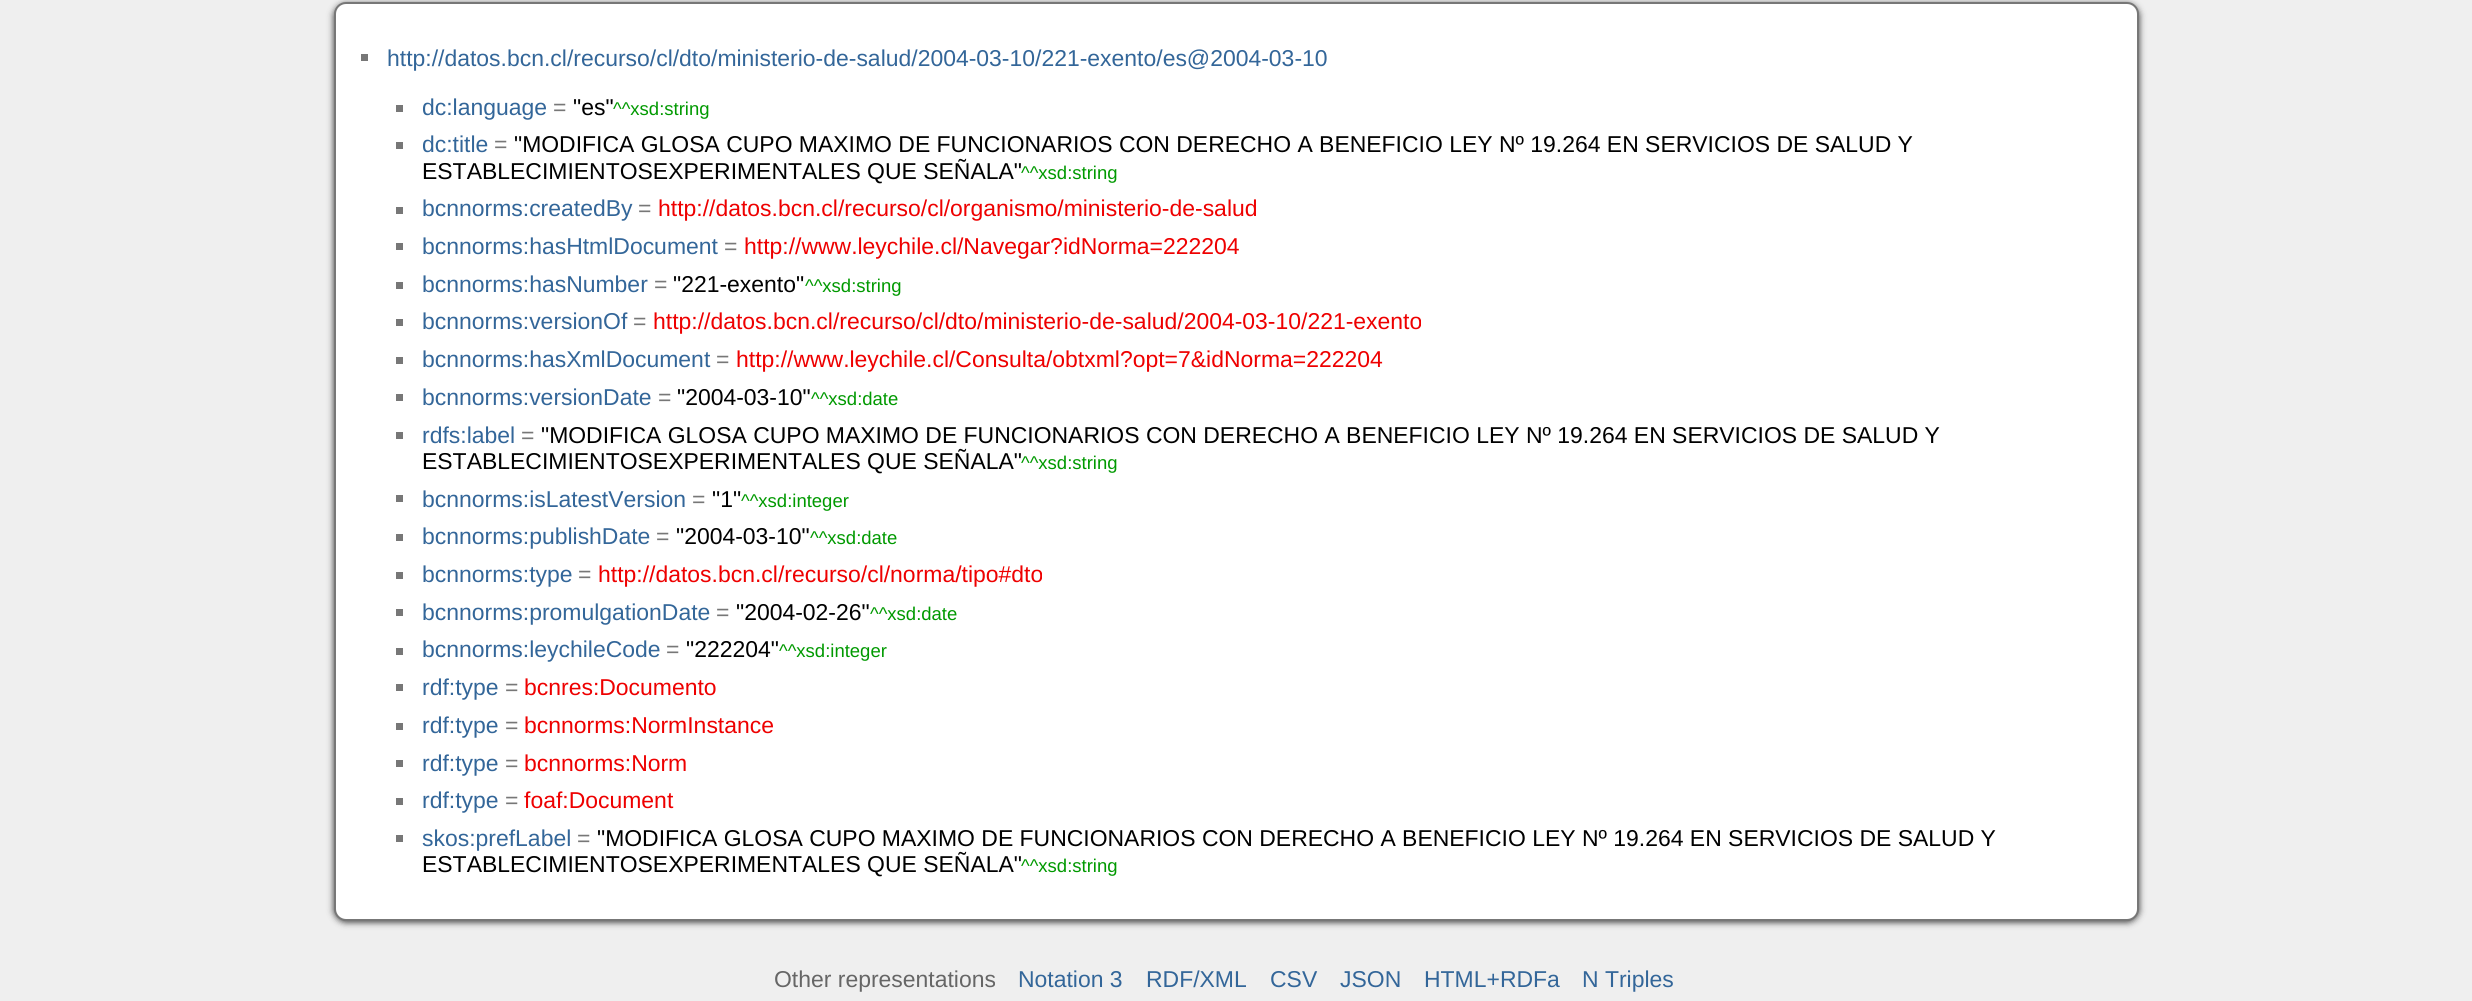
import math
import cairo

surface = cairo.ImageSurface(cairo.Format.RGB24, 2472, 1001)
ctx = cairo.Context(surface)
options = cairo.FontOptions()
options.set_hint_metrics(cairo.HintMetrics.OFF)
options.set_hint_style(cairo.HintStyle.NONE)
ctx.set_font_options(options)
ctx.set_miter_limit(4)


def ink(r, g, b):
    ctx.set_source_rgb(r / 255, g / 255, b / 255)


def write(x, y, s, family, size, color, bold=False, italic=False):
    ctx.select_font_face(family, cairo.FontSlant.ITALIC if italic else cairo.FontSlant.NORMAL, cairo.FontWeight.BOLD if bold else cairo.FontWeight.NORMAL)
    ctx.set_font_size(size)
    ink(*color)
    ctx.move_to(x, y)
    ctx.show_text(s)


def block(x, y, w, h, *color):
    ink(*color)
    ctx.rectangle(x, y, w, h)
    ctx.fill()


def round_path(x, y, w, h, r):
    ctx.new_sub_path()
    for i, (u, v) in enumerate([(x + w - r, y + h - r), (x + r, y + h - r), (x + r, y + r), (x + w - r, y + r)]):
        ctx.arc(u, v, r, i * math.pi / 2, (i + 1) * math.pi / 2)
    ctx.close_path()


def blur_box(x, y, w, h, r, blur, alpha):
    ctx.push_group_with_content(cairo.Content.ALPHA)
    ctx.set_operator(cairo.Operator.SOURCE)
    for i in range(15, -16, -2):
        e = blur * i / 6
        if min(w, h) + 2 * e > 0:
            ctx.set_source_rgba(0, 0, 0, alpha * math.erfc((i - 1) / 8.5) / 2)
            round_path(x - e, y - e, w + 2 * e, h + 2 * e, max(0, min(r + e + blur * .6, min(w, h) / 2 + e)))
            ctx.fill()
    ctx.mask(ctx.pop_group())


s1 = dict(family="Liberation Sans", size=22.95, color=(51, 102, 153))
s2 = dict(family="Liberation Sans", size=22.95, color=(119, 119, 119))
s3 = dict(family="Liberation Sans", size=22.95, color=(0, 0, 0))
s4 = dict(family="Liberation Sans", size=18.5, color=(0, 153, 0))
s5 = dict(family="Liberation Sans", size=22.95, color=(238, 0, 0))
s6 = dict(family="Liberation Sans", size=22.95, color=(102, 102, 102))

ink(239, 239, 239)
ctx.paint()
ink(51, 51, 51)
blur_box(334, 4, 1805, 918, 12, 3.5, 1)
ink(255, 255, 255)
round_path(335, 3, 1803, 917, 11)
ctx.fill_preserve()
ink(119, 119, 119)
ctx.stroke()
block(361, 54, 7, 7, 119, 119, 119)
write(387, 66, "http://datos.bcn.cl/recurso/cl/dto/ministerio-de-salud/2004-03-10/221-exento/es@2004-03-10", **s1)
block(396, 105, 7, 7, 119, 119, 119)
write(422, 115, "dc:language", **s1)
write(553, 115, "=", **s2)
write(573, 115, "\"es\"", **s3)
write(613, 115, "^^xsd:string", **s4)
block(396, 142, 7, 7, 119, 119, 119)
write(422, 152, "dc:title", **s1)
write(494, 152, "=", **s2)
write(514, 152, "\"MODIFICA GLOSA CUPO MAXIMO DE FUNCIONARIOS CON DERECHO A BENEFICIO LEY Nº 19.264 EN SERVICIOS DE SALUD Y", **s3)
write(422, 179, "ESTABLECIMIENTOSEXPERIMENTALES QUE SEÑALA\"", **s3)
write(1021, 179, "^^xsd:string", **s4)
block(396, 207, 7, 7, 119, 119, 119)
write(422, 216, "bcnnorms:createdBy", **s1)
write(638, 216, "=", **s2)
write(658, 216, "http://datos.bcn.cl/recurso/cl/organismo/ministerio-de-salud", **s5)
block(396, 243, 7, 7, 119, 119, 119)
write(422, 254, "bcnnorms:hasHtmlDocument", **s1)
write(724, 254, "=", **s2)
write(744, 254, "http://www.leychile.cl/Navegar?idNorma=222204", **s5)
block(396, 282, 7, 7, 119, 119, 119)
write(422, 292, "bcnnorms:hasNumber", **s1)
write(654, 292, "=", **s2)
write(673, 292, "\"221-exento\"", **s3)
write(805, 292, "^^xsd:string", **s4)
block(396, 319, 7, 7, 119, 119, 119)
write(422, 329, "bcnnorms:versionOf", **s1)
write(633, 329, "=", **s2)
write(653, 329, "http://datos.bcn.cl/recurso/cl/dto/ministerio-de-salud/2004-03-10/221-exento", **s5)
block(396, 357, 7, 7, 119, 119, 119)
write(422, 367, "bcnnorms:hasXmlDocument", **s1)
write(716, 367, "=", **s2)
write(736, 367, "http://www.leychile.cl/Consulta/obtxml?opt=7&idNorma=222204", **s5)
block(396, 394, 7, 7, 119, 119, 119)
write(422, 405, "bcnnorms:versionDate", **s1)
write(658, 405, "=", **s2)
write(677, 405, "\"2004-03-10\"", **s3)
write(811, 405, "^^xsd:date", **s4)
block(396, 432, 7, 7, 119, 119, 119)
write(422, 443, "rdfs:label", **s1)
write(521, 443, "=", **s2)
write(541, 443, "\"MODIFICA GLOSA CUPO MAXIMO DE FUNCIONARIOS CON DERECHO A BENEFICIO LEY Nº 19.264 EN SERVICIOS DE SALUD Y", **s3)
write(422, 469, "ESTABLECIMIENTOSEXPERIMENTALES QUE SEÑALA\"", **s3)
write(1021, 469, "^^xsd:string", **s4)
block(396, 495, 7, 7, 119, 119, 119)
write(422, 507, "bcnnorms:isLatestVersion", **s1)
write(692, 507, "=", **s2)
write(712, 507, "\"1\"", **s3)
write(741, 507, "^^xsd:integer", **s4)
block(396, 534, 7, 7, 119, 119, 119)
write(422, 544, "bcnnorms:publishDate", **s1)
write(656, 544, "=", **s2)
write(676, 544, "\"2004-03-10\"", **s3)
write(810, 544, "^^xsd:date", **s4)
block(396, 572, 7, 7, 119, 119, 119)
write(422, 582, "bcnnorms:type", **s1)
write(578, 582, "=", **s2)
write(598, 582, "http://datos.bcn.cl/recurso/cl/norma/tipo#dto", **s5)
block(396, 609, 7, 7, 119, 119, 119)
write(422, 620, "bcnnorms:promulgationDate", **s1)
write(716, 620, "=", **s2)
write(736, 620, "\"2004-02-26\"", **s3)
write(870, 620, "^^xsd:date", **s4)
block(396, 648, 7, 7, 119, 119, 119)
write(422, 657, "bcnnorms:leychileCode", **s1)
write(666, 657, "=", **s2)
write(686, 657, "\"222204\"", **s3)
write(779, 657, "^^xsd:integer", **s4)
block(396, 684, 7, 7, 119, 119, 119)
write(422, 695, "rdf:type", **s1)
write(505, 695, "=", **s2)
write(524, 695, "bcnres:Documento", **s5)
block(396, 723, 7, 7, 119, 119, 119)
write(422, 733, "rdf:type", **s1)
write(505, 733, "=", **s2)
write(524, 733, "bcnnorms:NormInstance", **s5)
block(396, 760, 7, 7, 119, 119, 119)
write(422, 771, "rdf:type", **s1)
write(505, 771, "=", **s2)
write(524, 771, "bcnnorms:Norm", **s5)
block(396, 798, 7, 7, 119, 119, 119)
write(422, 808, "rdf:type", **s1)
write(505, 808, "=", **s2)
write(524, 808, "foaf:Document", **s5)
block(396, 835, 7, 7, 119, 119, 119)
write(422, 846, "skos:prefLabel", **s1)
write(577, 846, "=", **s2)
write(597, 846, "\"MODIFICA GLOSA CUPO MAXIMO DE FUNCIONARIOS CON DERECHO A BENEFICIO LEY Nº 19.264 EN SERVICIOS DE SALUD Y", **s3)
write(422, 872, "ESTABLECIMIENTOSEXPERIMENTALES QUE SEÑALA\"", **s3)
write(1021, 872, "^^xsd:string", **s4)
write(774, 987, "Other representations", **s6)
write(1018, 987, "Notation 3", **s1)
write(1146, 987, "RDF/XML", **s1)
write(1270, 987, "CSV", **s1)
write(1340, 987, "JSON", **s1)
write(1424, 987, "HTML+RDFa", **s1)
write(1582, 987, "N Triples", **s1)
surface.write_to_png("screenshot.png")
